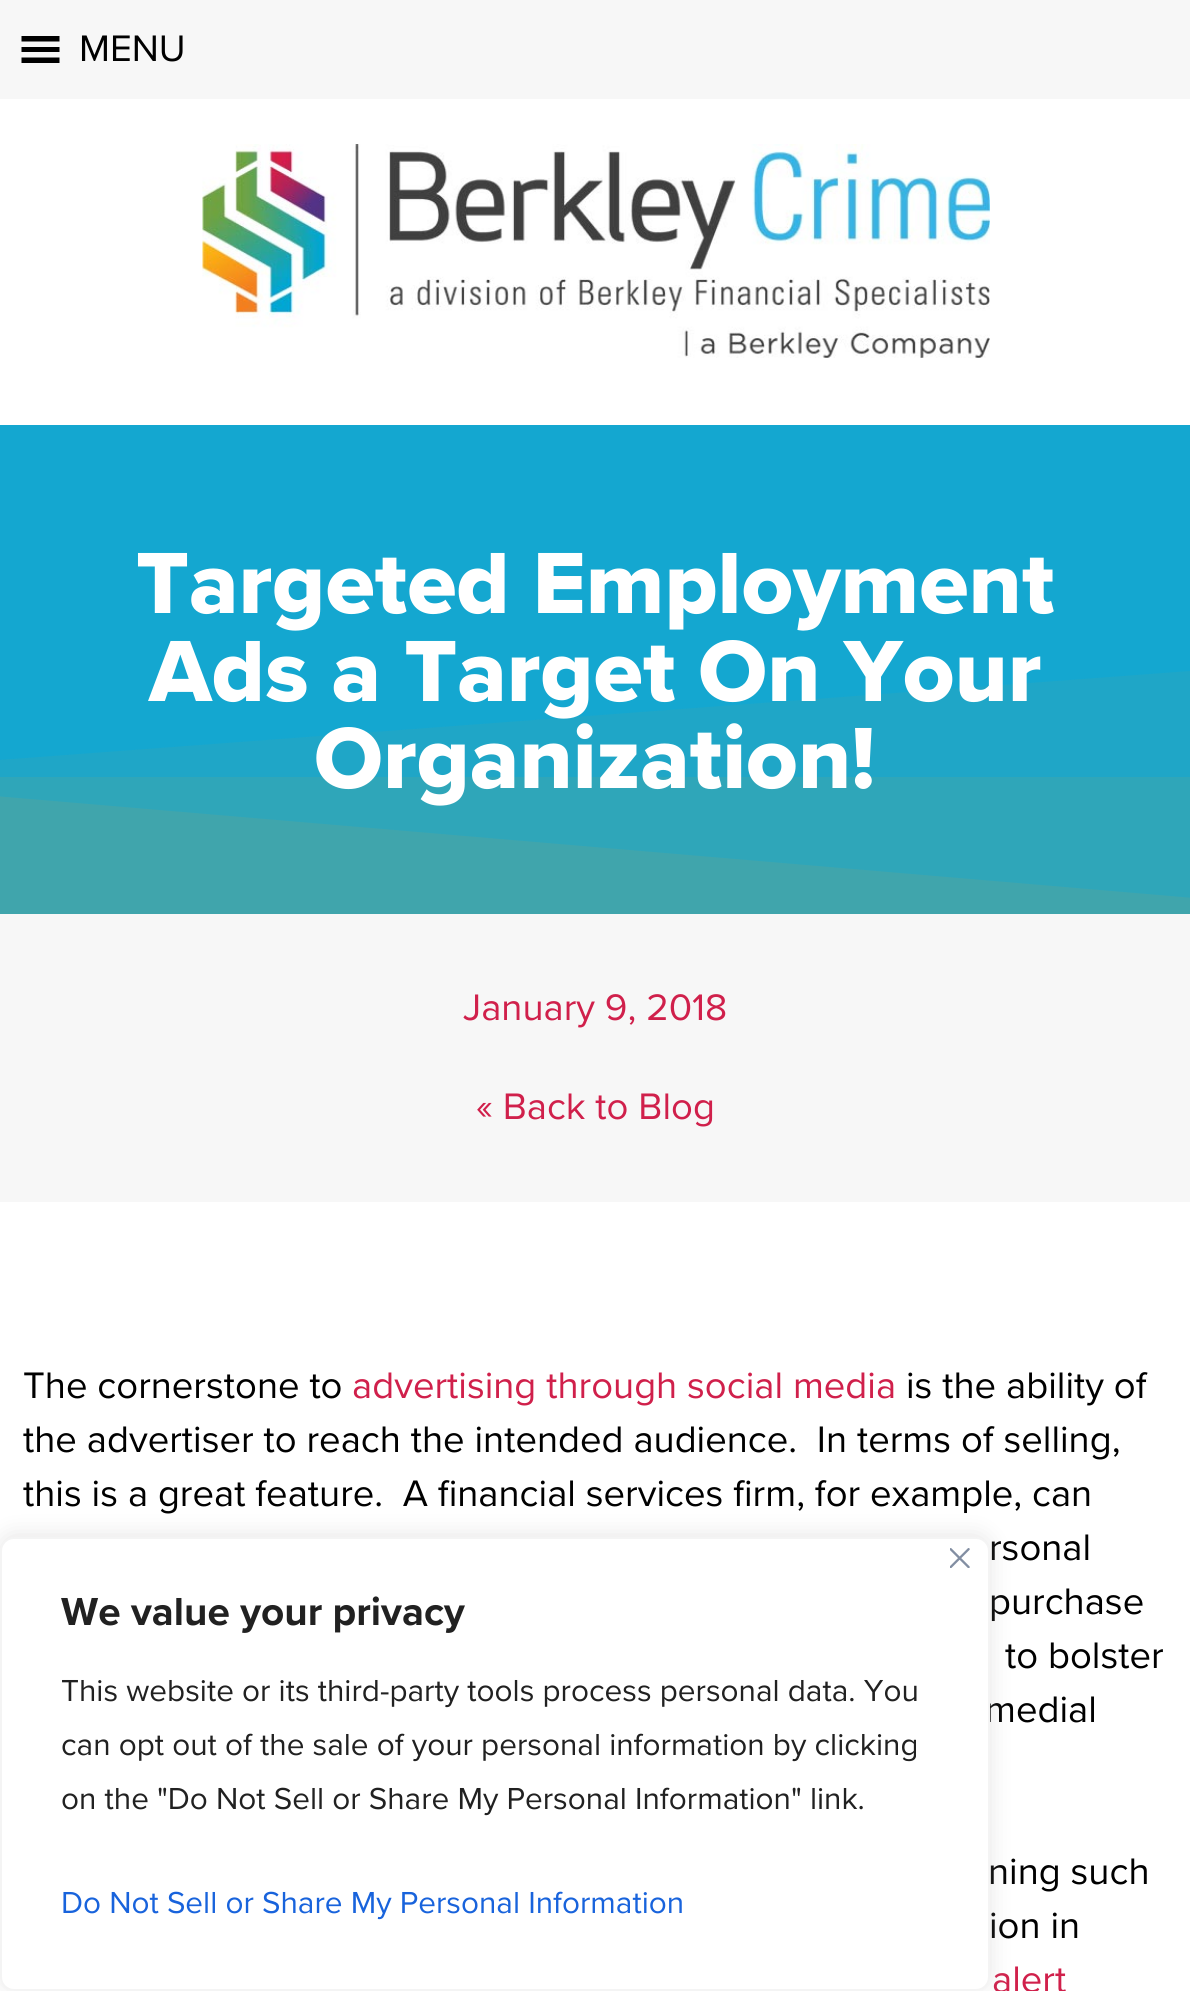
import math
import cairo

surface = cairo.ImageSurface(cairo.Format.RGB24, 1190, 1991)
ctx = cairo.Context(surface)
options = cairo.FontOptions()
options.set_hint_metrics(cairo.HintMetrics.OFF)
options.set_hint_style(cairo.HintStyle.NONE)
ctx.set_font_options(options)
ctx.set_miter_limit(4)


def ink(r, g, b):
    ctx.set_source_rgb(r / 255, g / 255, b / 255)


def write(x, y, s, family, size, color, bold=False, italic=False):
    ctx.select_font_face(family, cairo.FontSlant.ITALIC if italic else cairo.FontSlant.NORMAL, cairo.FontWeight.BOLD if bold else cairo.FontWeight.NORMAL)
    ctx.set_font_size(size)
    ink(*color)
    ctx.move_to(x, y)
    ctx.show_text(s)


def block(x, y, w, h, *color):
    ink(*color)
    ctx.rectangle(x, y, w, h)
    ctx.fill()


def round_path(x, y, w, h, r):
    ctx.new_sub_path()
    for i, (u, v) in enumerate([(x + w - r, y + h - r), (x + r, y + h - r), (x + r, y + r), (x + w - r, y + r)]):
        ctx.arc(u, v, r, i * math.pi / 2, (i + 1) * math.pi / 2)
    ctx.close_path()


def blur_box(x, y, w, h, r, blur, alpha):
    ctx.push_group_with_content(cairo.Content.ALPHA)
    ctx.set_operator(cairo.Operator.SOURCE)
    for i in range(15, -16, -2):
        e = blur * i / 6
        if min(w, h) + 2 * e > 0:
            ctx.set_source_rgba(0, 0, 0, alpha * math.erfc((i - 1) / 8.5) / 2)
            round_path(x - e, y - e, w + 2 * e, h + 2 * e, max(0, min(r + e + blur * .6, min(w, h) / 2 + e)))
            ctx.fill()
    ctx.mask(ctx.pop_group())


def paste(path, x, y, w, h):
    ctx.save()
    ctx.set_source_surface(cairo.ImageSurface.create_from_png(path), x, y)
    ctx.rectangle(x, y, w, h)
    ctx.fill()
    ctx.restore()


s1 = dict(family="Proxima Nova", size=38.25, color=(0, 0, 0))
s2 = dict(family="Proxima Nova ExtraBold", size=90, color=(255, 255, 255))
s3 = dict(family="Proxima Nova", size=38.25, color=(208, 32, 75))
s4 = dict(family="Proxima Nova", size=40.5, color=(33, 33, 33), bold=True)
s5 = dict(family="Proxima Nova", size=31.5, color=(33, 33, 33))
s6 = dict(family="Proxima Nova", size=31.5, color=(24, 99, 220))

ink(255, 255, 255)
ctx.paint()
block(0, 0, 1190, 99, 247, 247, 247)
ink(0, 0, 0)
ctx.new_path()
ctx.move_to(21.5, 63)
ctx.line_to(59.5, 63)
ctx.line_to(59.5, 57.5)
ctx.line_to(21.5, 57.5)
ctx.close_path()
ctx.move_to(21.5, 36)
ctx.line_to(21.5, 41.5)
ctx.line_to(59.5, 41.5)
ctx.line_to(59.5, 36)
ctx.close_path()
ctx.move_to(21.5, 52)
ctx.line_to(59.5, 52)
ctx.line_to(59.5, 47)
ctx.line_to(21.5, 47)
ctx.close_path()
ctx.fill()
write(79, 61, "MENU", **s1)
paste("pic1.png", 202, 144, 788, 214)
block(0, 425, 1190, 352, 20, 167, 208)
block(0, 777, 1190, 121, 42, 167, 190)
write(136, 613, "Targeted Employment", **s2)
ink(64, 166, 172)
ctx.new_path()
ctx.move_to(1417, 917)
ctx.line_to(-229, 917)
ctx.line_to(-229, 777)
ctx.close_path()
ctx.fill()
ctx.set_source_rgba(0.251, 0.651, 0.675, 0.25)
ctx.new_path()
ctx.move_to(-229, 917)
ctx.line_to(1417, 917)
ctx.line_to(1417, 654)
ctx.line_to(-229, 777)
ctx.close_path()
ctx.fill()
write(149, 701, "Ads a Target On Your", **s2)
write(314, 788, "Organization!", **s2)
block(0, 914, 1190, 288, 247, 247, 247)
write(463, 1020, "January 9, 2018", **s3)
write(476, 1119, "« Back to Blog", **s3)
write(23, 1398, "The cornerstone to", **s1)
write(352, 1398, "advertising through social media", **s3)
write(906, 1398, "is the ability of", **s1)
write(23, 1452, "the advertiser to reach the intended audience.  In terms of selling,", **s1)
write(23, 1506, "this is a great feature.  A financial services firm, for example, can", **s1)
write(989, 1560, "rsonal", **s1)
write(989, 1614, "purchase", **s1)
write(1005, 1668, "to bolster", **s1)
write(985, 1722, "medial", **s1)
write(988, 1884, "ning such", **s1)
write(989, 1938, "ion in", **s1)
write(992, 1992, "alert", **s3)
ink(172, 171, 171)
blur_box(0, 1535, 990, 454, 14, 11, 0.3)
ink(255, 255, 255)
round_path(1, 1538, 988, 452, 13)
ctx.fill_preserve()
ink(244, 244, 244)
ctx.stroke()
paste("pic2.png", 950, 1548, 20, 20)
write(61, 1625, "We value your privacy", **s4)
write(61, 1701, "This website or its third-party tools process personal data. You", **s5)
write(61, 1755, "can opt out of the sale of your personal information by clicking", **s5)
write(61, 1809, "on the \"Do Not Sell or Share My Personal Information\" link.", **s5)
write(61, 1913, "Do Not Sell or Share My Personal Information", **s6)
surface.write_to_png("screenshot.png")
